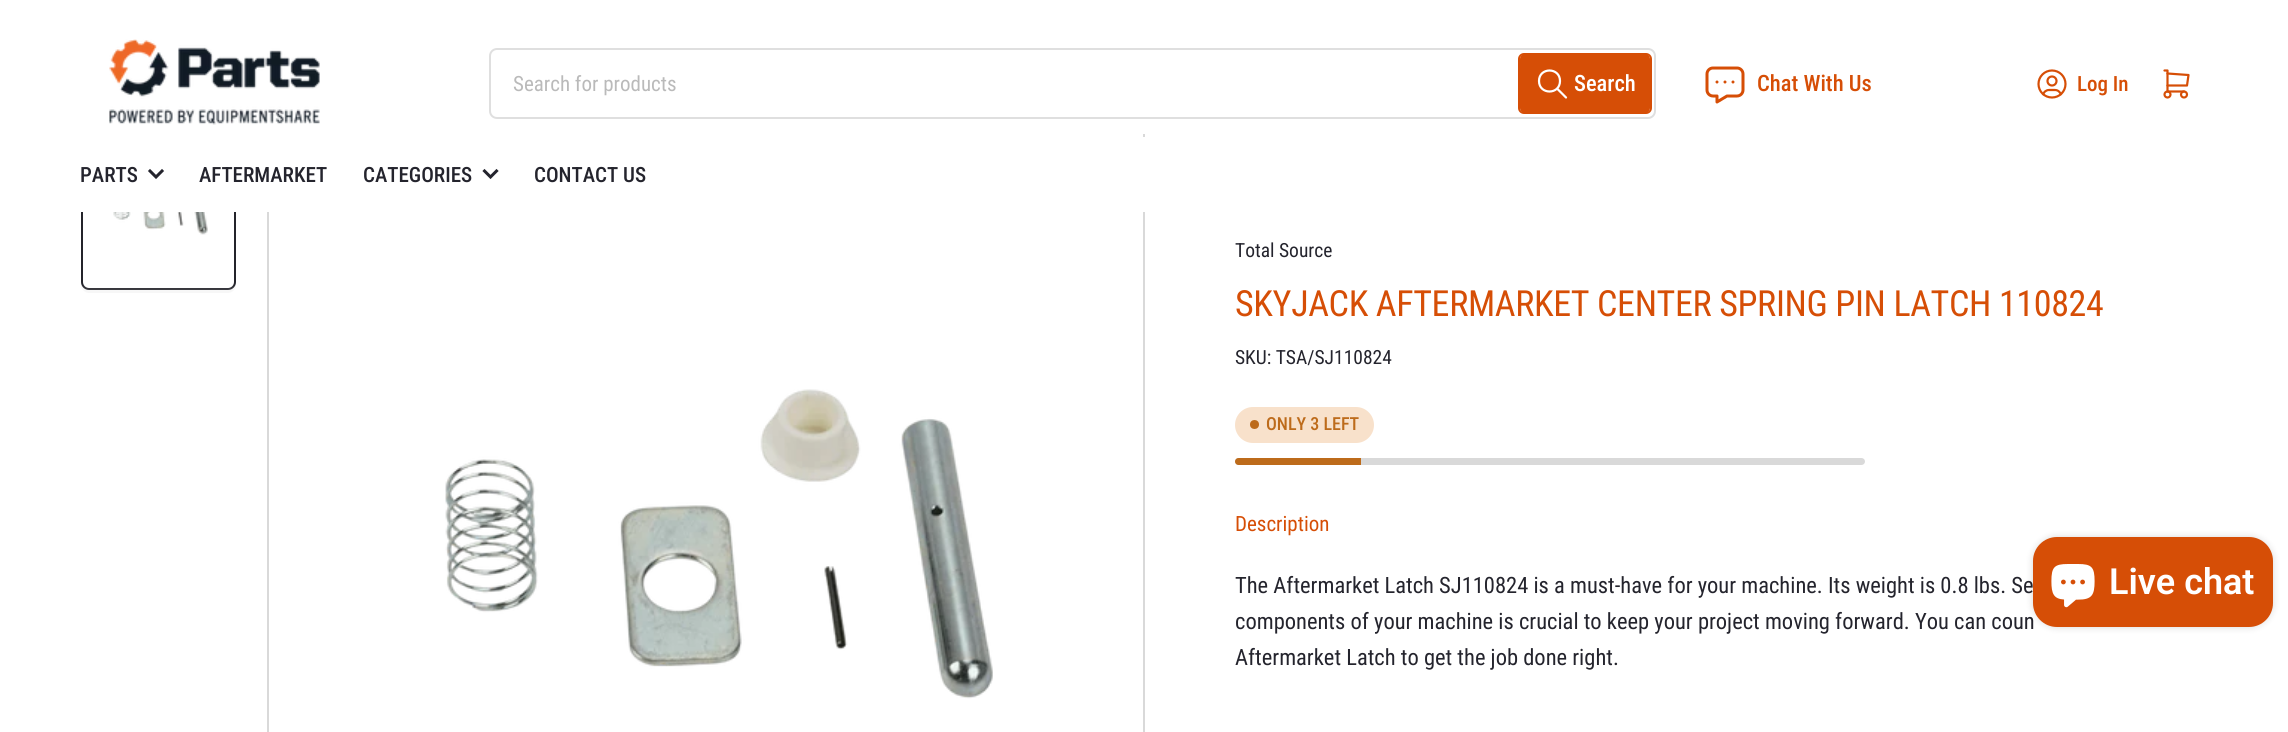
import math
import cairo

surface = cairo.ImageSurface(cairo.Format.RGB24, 2288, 732)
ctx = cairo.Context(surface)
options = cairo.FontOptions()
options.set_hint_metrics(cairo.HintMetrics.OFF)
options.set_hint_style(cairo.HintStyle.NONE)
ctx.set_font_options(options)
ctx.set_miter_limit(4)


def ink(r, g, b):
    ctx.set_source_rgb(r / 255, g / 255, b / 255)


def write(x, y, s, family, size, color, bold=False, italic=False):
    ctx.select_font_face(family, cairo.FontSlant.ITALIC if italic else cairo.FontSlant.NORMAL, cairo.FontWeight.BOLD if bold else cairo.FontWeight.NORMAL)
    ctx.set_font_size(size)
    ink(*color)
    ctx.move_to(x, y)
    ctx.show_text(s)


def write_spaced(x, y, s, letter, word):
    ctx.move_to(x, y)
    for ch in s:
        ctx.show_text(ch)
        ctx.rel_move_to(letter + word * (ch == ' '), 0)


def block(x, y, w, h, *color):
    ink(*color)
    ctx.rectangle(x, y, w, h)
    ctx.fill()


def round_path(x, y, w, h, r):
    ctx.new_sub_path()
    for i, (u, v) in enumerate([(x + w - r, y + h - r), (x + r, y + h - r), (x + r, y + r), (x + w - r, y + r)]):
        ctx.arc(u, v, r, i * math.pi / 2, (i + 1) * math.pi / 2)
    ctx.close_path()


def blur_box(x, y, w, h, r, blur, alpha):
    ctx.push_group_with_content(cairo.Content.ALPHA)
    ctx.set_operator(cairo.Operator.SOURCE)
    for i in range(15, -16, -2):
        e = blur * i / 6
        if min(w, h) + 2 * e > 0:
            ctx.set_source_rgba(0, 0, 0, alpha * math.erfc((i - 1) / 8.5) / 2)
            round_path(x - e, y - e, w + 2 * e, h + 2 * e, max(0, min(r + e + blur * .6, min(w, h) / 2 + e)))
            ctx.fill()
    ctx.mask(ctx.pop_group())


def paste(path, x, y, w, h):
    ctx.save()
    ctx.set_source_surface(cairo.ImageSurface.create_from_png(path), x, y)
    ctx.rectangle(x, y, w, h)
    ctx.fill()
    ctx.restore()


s1 = dict(family="Roboto Condensed", size=21, color=(186, 186, 186))
s2 = dict(family="Roboto Condensed Medium", size=22.5, color=(255, 255, 255))
s3 = dict(family="Roboto Condensed Medium", size=22.5, color=(214, 78, 6))
s4 = dict(family="Roboto Condensed Medium", size=21, color=(214, 78, 6))
s5 = dict(family="Roboto Condensed Medium", size=21, color=(36, 36, 45))
s6 = dict(family="Roboto Condensed", size=19.5, color=(36, 36, 45))
s7 = dict(family="Roboto Condensed Medium", size=18, color=(189, 107, 27))
s8 = dict(family="Roboto Condensed", size=21, color=(214, 78, 6))
s9 = dict(family="Roboto Condensed", size=22.5, color=(36, 36, 45))
s10 = dict(family="Roboto SemiBold", size=36, color=(255, 255, 255))

ink(255, 255, 255)
ctx.paint()
ink(247, 247, 247)
ctx.new_path()
ctx.move_to(81, 282)
ctx.line_to(81, 285)
ctx.curve_to(81, 289, 85, 293, 89, 293)
ctx.line_to(228, 293)
ctx.curve_to(232, 293, 236, 289, 236, 285)
ctx.line_to(236, 146)
ctx.line_to(236, 143)
ctx.line_to(236, 282)
ctx.curve_to(236, 286, 232, 290, 228, 290)
ctx.line_to(88, 290)
ctx.curve_to(84, 290, 81, 286, 81, 282)
ctx.close_path()
ctx.fill()
ink(255, 255, 255)
round_path(82, 136, 153, 153, 7)
ctx.fill_preserve()
ink(36, 36, 43)
ctx.stroke()
ctx.rectangle(268, 135, 876, 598)
ink(217, 217, 217)
ctx.stroke()
block(83, 134, 1060, 3, 255, 255, 255)
paste("pic1.png", 109, 39, 211, 86)
round_path(490, 49, 1165, 69, 7)
ink(223, 223, 223)
ctx.stroke()
write(513, 91, "Search for products", **s1)
round_path(1519, 54, 132, 59, 5)
ink(214, 78, 6)
ctx.stroke()
round_path(1520, 54, 130, 59, 5)
ctx.fill()
ctx.new_path()
ctx.move_to(1539, 81)
ctx.curve_to(1539, 95, 1560, 95, 1560, 81)
ctx.curve_to(1560, 67, 1539, 67, 1539, 81)
ctx.move_to(1566, 97.5)
ctx.line_to(1557, 88.5)
ink(255, 255, 255)
ctx.set_line_width(2.2)
ctx.set_line_cap(cairo.LineCap.ROUND)
ctx.set_line_join(cairo.LineJoin.ROUND)
ctx.stroke()
write(1574, 91, "Search", **s2)
paste("pic2.png", 1705, 66, 40, 38)
write(1757, 91, "Chat With Us", **s3)
paste("pic3.png", 2037, 69, 30, 30)
write(2077, 91, "Log In", **s4)
paste("pic4.png", 2163, 69, 27, 30)
block(81, 137, 1064, 75, 255, 255, 255)
write(80, 182, "PARTS", **s5)
ctx.new_path()
ctx.move_to(162, 171)
ctx.line_to(156, 177)
ctx.line_to(150, 171)
ctx.set_line_width(3)
ctx.set_line_cap(cairo.LineCap.SQUARE)
ctx.set_line_join(cairo.LineJoin.MITER)
ctx.stroke()
write(199, 182, "AFTERMARKET", **s5)
write(363, 182, "CATEGORIES", **s5)
ctx.new_path()
ctx.move_to(496.5, 171)
ctx.line_to(490.5, 177)
ctx.line_to(484.5, 171)
ctx.stroke()
write(534, 182, "CONTACT US", **s5)
paste("pic5.png", 113, 212, 95, 23)
gradient = cairo.LinearGradient(158, 336, 158, 284)
gradient.add_color_stop_rgba(0, 1, 1, 1, 1)
gradient.add_color_stop_rgba(1, 1, 1, 1, 0)
ctx.set_source(gradient)
ctx.rectangle(82, 285, 153, 5)
ctx.fill()
paste("pic6.png", 445, 389, 548, 310)
write(1235, 257, "Total Source", **s6)
ctx.set_font_size(36)
ink(214, 78, 6)
write_spaced(1235, 316, "SKYJACK AFTERMARKET CENTER SPRING PIN LATCH 110824", -0.35, 0)
write(1235, 364, "SKU: TSA/SJ110824", **s6)
ink(248, 225, 203)
round_path(1235, 407, 139, 36, 18)
ctx.fill()
ink(189, 107, 27)
ctx.arc(1254.5, 424.5, 4.5, 0, 2 * math.pi)
ctx.fill()
write(1266, 430, "ONLY 3 LEFT", **s7)
ink(217, 217, 217)
round_path(1235, 458, 630, 7, 3.5)
ctx.fill()
ink(189, 107, 27)
ctx.new_path()
ctx.move_to(1238.5, 458)
ctx.line_to(1361, 458)
ctx.line_to(1361, 465)
ctx.line_to(1238.5, 465)
ctx.curve_to(1236.5, 465, 1235, 463.5, 1235, 461.5)
ctx.curve_to(1235, 459.5, 1236.5, 458, 1238.5, 458)
ctx.close_path()
ctx.fill()
write(1235, 531, "Description", **s8)
write(1235, 593, "The Aftermarket Latch SJ110824 is a must-have for your machine. Its weight is 0.8 lbs. Se", **s9)
write(1235, 629, "components of your machine is crucial to keep your project moving forward. You can coun", **s9)
write(1235, 665, "Aftermarket Latch to get the job done right.", **s9)
ink(0, 0, 0)
blur_box(2033, 537, 240, 90, 24, 4, 0.15)
ink(214, 78, 6)
round_path(2033, 537, 240, 90, 24)
ctx.fill()
paste("pic7.png", 2051, 564, 44, 44)
write(2109, 594, "Live chat", **s10)
surface.write_to_png("screenshot.png")
